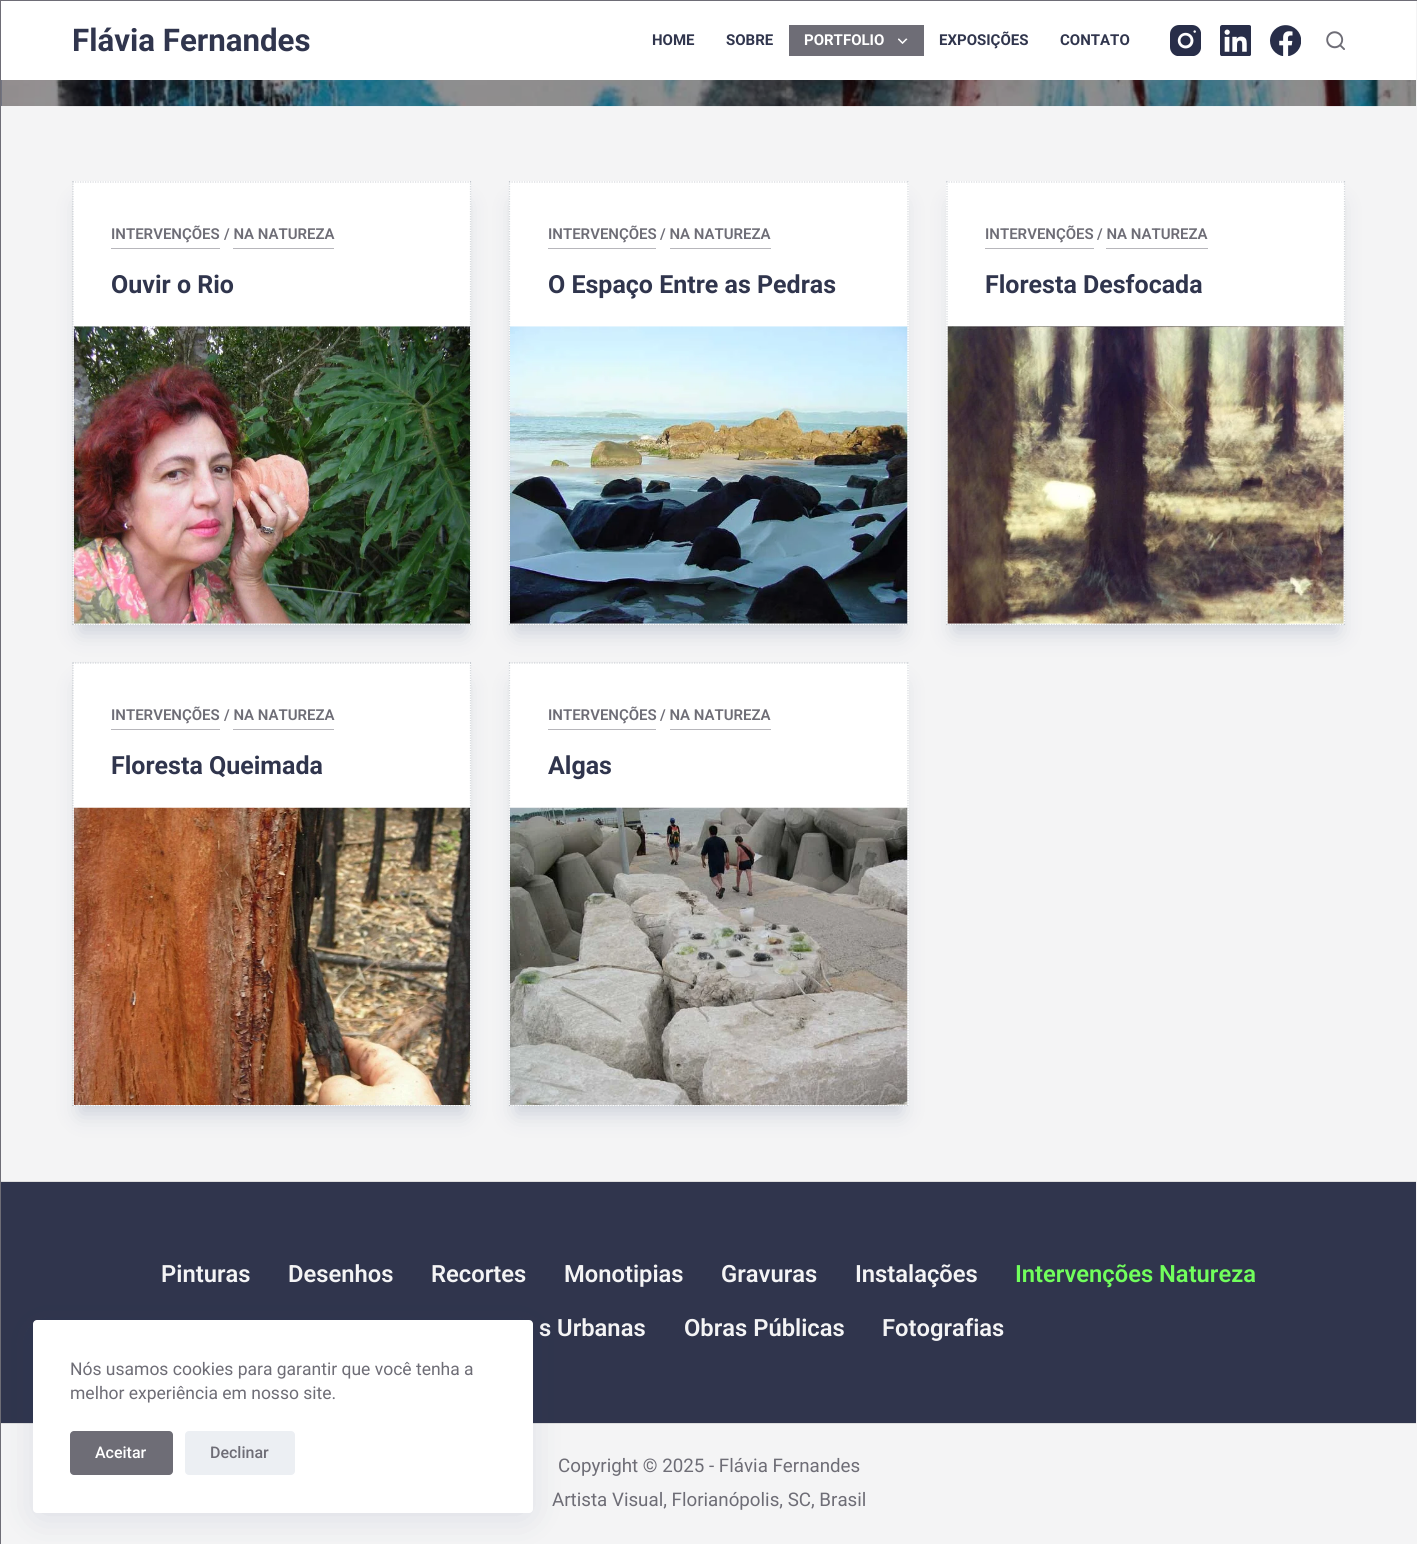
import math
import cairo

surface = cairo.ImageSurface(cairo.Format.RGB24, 1417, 1544)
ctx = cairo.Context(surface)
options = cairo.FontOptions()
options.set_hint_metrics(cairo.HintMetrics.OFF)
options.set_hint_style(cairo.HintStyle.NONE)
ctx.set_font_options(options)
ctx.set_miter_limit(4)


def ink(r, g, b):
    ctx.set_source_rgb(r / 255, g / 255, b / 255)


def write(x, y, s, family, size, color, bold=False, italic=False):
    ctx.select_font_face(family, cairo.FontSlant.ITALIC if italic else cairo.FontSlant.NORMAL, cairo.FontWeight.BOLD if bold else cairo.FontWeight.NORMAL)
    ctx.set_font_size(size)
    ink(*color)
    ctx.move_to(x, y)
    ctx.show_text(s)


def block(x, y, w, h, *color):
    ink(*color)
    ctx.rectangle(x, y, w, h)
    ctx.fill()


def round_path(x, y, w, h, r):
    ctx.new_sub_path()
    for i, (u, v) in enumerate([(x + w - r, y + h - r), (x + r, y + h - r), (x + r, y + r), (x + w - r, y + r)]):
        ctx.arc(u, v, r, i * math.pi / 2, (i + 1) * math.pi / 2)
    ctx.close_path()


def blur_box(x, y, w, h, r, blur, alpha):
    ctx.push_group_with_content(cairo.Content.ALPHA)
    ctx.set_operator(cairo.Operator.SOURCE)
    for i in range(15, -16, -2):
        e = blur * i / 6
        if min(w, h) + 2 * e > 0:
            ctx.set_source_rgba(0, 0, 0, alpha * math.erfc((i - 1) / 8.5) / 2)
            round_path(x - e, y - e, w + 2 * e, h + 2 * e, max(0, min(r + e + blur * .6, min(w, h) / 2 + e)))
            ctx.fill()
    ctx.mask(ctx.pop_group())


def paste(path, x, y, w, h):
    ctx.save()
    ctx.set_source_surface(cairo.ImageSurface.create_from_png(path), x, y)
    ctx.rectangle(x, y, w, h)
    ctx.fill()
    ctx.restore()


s1 = dict(family="Roboto", size=31.25, color=(48, 53, 77), bold=True)
s2 = dict(family="Roboto", size=15, color=(48, 53, 77), bold=True)
s3 = dict(family="Roboto", size=15, color=(255, 255, 255), bold=True)
s4 = dict(family="Roboto SemiBold", size=15, color=(110, 109, 118))
s5 = dict(family="Roboto", size=25, color=(48, 53, 77), bold=True)
s6 = dict(family="Roboto SemiBold", size=23.75, color=(244, 244, 245))
s7 = dict(family="Roboto SemiBold", size=23.75, color=(113, 255, 92))
s8 = dict(family="Roboto", size=18.75, color=(110, 109, 118))
s9 = dict(family="Roboto", size=17.5, color=(110, 109, 118))
s10 = dict(family="Roboto Medium", size=16, color=(255, 255, 255))
s11 = dict(family="Roboto Medium", size=16, color=(110, 109, 118))

ink(244, 244, 245)
ctx.paint()
ctx.rectangle(0.5, -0.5, 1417, 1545)
ink(110, 109, 118)
ctx.set_line_width(1)
ctx.stroke()
block(0, 0, 1417, 1, 110, 109, 118)
block(1, 1, 1415, 79, 255, 255, 255)
write(72, 51, "Flávia Fernandes", **s1)
write(652, 45, "HOME", **s2)
write(726, 45, "SOBRE", **s2)
block(789, 25, 135, 31, 110, 109, 118)
write(804, 45, "PORTFOLIO", **s3)
paste("pic1.png", 898, 38, 10, 6)
write(939, 45, "EXPOSIÇÕES", **s2)
write(1060, 45, "CONTATO", **s2)
paste("pic2.png", 1170, 25, 31, 31)
paste("pic3.png", 1220, 25, 31, 31)
paste("pic4.png", 1270, 25, 31, 31)
paste("pic5.png", 1326, 31, 19, 19)
block(1, 80, 1, 26, 73, 82, 110)
paste("pic6.png", 1, 80, 1415, 27)
ink(35, 57, 102)
blur_box(80, 204, 384, 429, 0, 11, 0.19)
block(73, 181, 398, 444, 255, 255, 255)
ctx.new_path()
ctx.move_to(72.5, 182)
ctx.line_to(471, 182)
ink(213, 216, 220)
ctx.set_line_width(1.2)
ctx.set_dash([1.25, 1.25])
ctx.stroke()
ctx.new_path()
ctx.move_to(470.5, 181)
ctx.line_to(470.5, 625)
ctx.set_source_rgba(0.173, 0.243, 0.314, 0.2)
ctx.stroke()
ctx.new_path()
ctx.move_to(72.5, 624.5)
ctx.line_to(471, 624.5)
ctx.stroke()
ctx.new_path()
ctx.move_to(73, 181)
ctx.line_to(73, 625)
ctx.stroke()
write(111, 239, "INTERVENÇÕES", **s4)
block(111, 248, 109, 1, 183, 182, 187)
write(224, 239, "/ NA NATUREZA", **s4)
block(233, 248, 101, 1, 183, 182, 187)
write(111, 293, "Ouvir o Rio", **s5)
paste("pic7.png", 73, 326, 397, 298)
ink(35, 57, 102)
blur_box(516, 204, 385, 429, 0, 11, 0.19)
block(509, 181, 400, 444, 255, 255, 255)
ctx.new_path()
ctx.move_to(509, 182)
ctx.line_to(909, 182)
ink(213, 216, 220)
ctx.stroke()
ctx.new_path()
ctx.move_to(908, 181)
ctx.line_to(908, 625)
ctx.set_source_rgba(0.173, 0.243, 0.314, 0.2)
ctx.stroke()
ctx.new_path()
ctx.move_to(509, 624.5)
ctx.line_to(909, 624.5)
ctx.stroke()
ctx.new_path()
ctx.move_to(509.5, 181)
ctx.line_to(509.5, 625)
ctx.stroke()
write(548, 239, "INTERVENÇÕES", **s4)
block(548, 248, 108, 1, 183, 182, 187)
write(660, 239, "/ NA NATUREZA", **s4)
block(670, 248, 101, 1, 183, 182, 187)
write(548, 293, "O Espaço Entre as Pedras", **s5)
paste("pic8.png", 510, 326, 398, 298)
ink(35, 57, 102)
blur_box(954, 204, 384, 429, 0, 11, 0.19)
block(946, 181, 399, 444, 255, 255, 255)
ctx.new_path()
ctx.move_to(946, 182)
ctx.line_to(1345, 182)
ink(213, 216, 220)
ctx.stroke()
ctx.new_path()
ctx.move_to(1344.5, 181)
ctx.line_to(1344.5, 625)
ctx.set_source_rgba(0.173, 0.243, 0.314, 0.2)
ctx.stroke()
ctx.new_path()
ctx.move_to(946, 624.5)
ctx.line_to(1345, 624.5)
ctx.stroke()
ctx.new_path()
ctx.move_to(947, 181)
ctx.line_to(947, 625)
ctx.stroke()
write(985, 239, "INTERVENÇÕES", **s4)
block(985, 248, 109, 1, 183, 182, 187)
write(1097, 239, "/ NA NATUREZA", **s4)
block(1106, 248, 102, 1, 183, 182, 187)
write(985, 293, "Floresta Desfocada", **s5)
paste("pic9.png", 947, 326, 397, 298)
ink(35, 57, 102)
blur_box(80, 685, 384, 429, 0, 11, 0.19)
block(73, 663, 398, 443, 255, 255, 255)
ctx.new_path()
ctx.move_to(72.5, 663)
ctx.line_to(471, 663)
ctx.set_source_rgba(0.173, 0.243, 0.314, 0.2)
ctx.stroke()
ctx.new_path()
ctx.move_to(470.5, 662.5)
ctx.line_to(470.5, 1106)
ctx.stroke()
ctx.new_path()
ctx.move_to(72.5, 1105.5)
ctx.line_to(471, 1105.5)
ctx.stroke()
ctx.new_path()
ctx.move_to(73, 662.5)
ctx.line_to(73, 1106)
ctx.stroke()
write(111, 720, "INTERVENÇÕES", **s4)
block(111, 729, 109, 1, 183, 182, 187)
write(224, 720, "/ NA NATUREZA", **s4)
block(233, 729, 101, 1, 183, 182, 187)
write(111, 774, "Floresta Queimada", **s5)
paste("pic10.png", 73, 807, 397, 298)
ink(35, 57, 102)
blur_box(516, 685, 385, 429, 0, 11, 0.19)
block(509, 663, 400, 443, 255, 255, 255)
ctx.new_path()
ctx.move_to(509, 663)
ctx.line_to(909, 663)
ctx.set_source_rgba(0.173, 0.243, 0.314, 0.2)
ctx.stroke()
ctx.new_path()
ctx.move_to(908, 662.5)
ctx.line_to(908, 1106)
ctx.stroke()
ctx.new_path()
ctx.move_to(509, 1105.5)
ctx.line_to(909, 1105.5)
ctx.stroke()
ctx.new_path()
ctx.move_to(509.5, 662.5)
ctx.line_to(509.5, 1106)
ctx.stroke()
write(548, 720, "INTERVENÇÕES", **s4)
block(548, 729, 108, 1, 183, 182, 187)
write(660, 720, "/ NA NATUREZA", **s4)
block(670, 729, 101, 1, 183, 182, 187)
write(548, 774, "Algas", **s5)
paste("pic11.png", 510, 807, 398, 298)
block(1, 1182, 1415, 241, 48, 53, 77)
block(1, 1181, 1415, 1, 221, 221, 221)
block(1, 1423, 1415, 1, 221, 221, 221)
write(161, 1282, "Pinturas", **s6)
write(288, 1282, "Desenhos", **s6)
write(431, 1282, "Recortes", **s6)
write(564, 1282, "Monotipias", **s6)
write(721, 1282, "Gravuras", **s6)
write(855, 1282, "Instalações", **s6)
write(1015, 1282, "Intervenções Natureza", **s7)
write(539, 1336, "s Urbanas", **s6)
write(684, 1336, "Obras Públicas", **s6)
write(882, 1336, "Fotografias", **s6)
write(558, 1472, "Copyright © 2025 - Flávia Fernandes", **s8)
write(552, 1506, "Artista Visual, Florianópolis, SC, Brasil", **s8)
ink(34, 56, 101)
blur_box(39, 1333, 487, 180, 0, 19, 0.15)
ink(255, 255, 255)
round_path(33, 1320, 500, 193, 4)
ctx.fill()
write(70, 1375, "Nós usamos cookies para garantir que você tenha a", **s9)
write(70, 1399, "melhor experiência em nosso site.", **s9)
round_path(70, 1431, 103, 44, 4)
ctx.fill()
write(95, 1458, "Aceitar", **s10)
ink(236, 239, 243)
round_path(185, 1431, 110, 44, 4)
ctx.fill()
write(210, 1458, "Declinar", **s11)
surface.write_to_png("screenshot.png")
